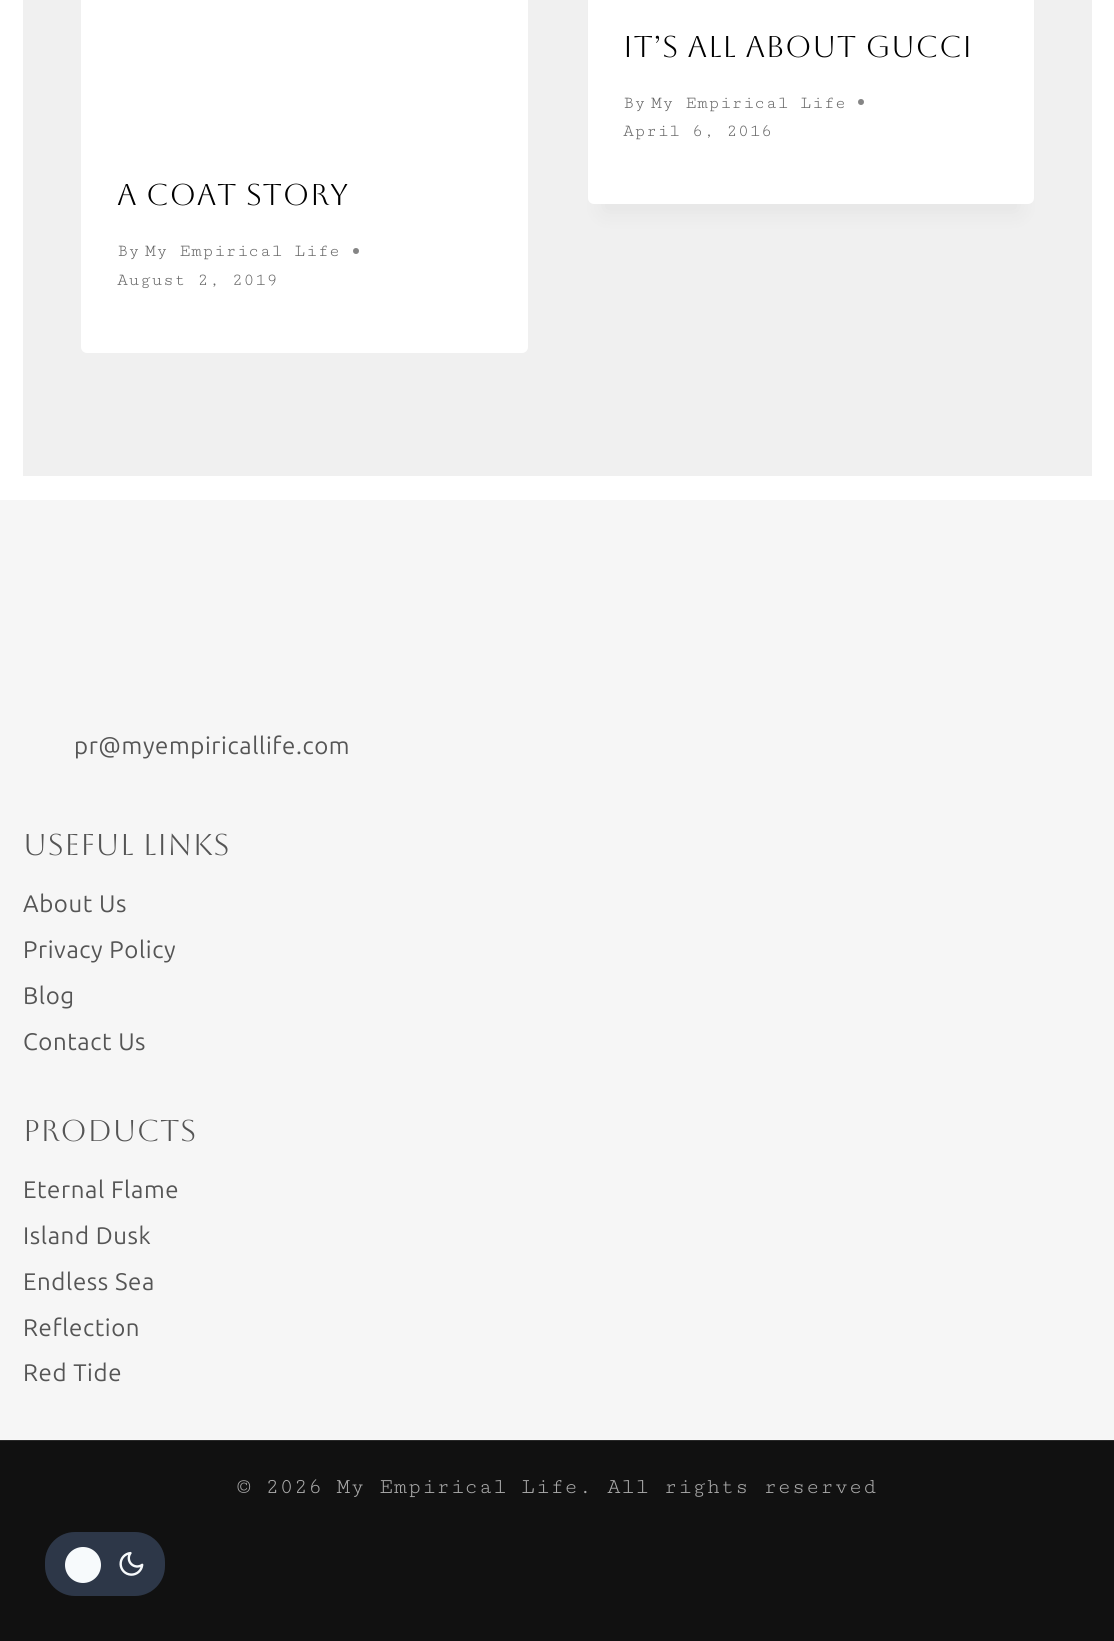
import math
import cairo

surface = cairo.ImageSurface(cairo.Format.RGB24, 1114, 1641)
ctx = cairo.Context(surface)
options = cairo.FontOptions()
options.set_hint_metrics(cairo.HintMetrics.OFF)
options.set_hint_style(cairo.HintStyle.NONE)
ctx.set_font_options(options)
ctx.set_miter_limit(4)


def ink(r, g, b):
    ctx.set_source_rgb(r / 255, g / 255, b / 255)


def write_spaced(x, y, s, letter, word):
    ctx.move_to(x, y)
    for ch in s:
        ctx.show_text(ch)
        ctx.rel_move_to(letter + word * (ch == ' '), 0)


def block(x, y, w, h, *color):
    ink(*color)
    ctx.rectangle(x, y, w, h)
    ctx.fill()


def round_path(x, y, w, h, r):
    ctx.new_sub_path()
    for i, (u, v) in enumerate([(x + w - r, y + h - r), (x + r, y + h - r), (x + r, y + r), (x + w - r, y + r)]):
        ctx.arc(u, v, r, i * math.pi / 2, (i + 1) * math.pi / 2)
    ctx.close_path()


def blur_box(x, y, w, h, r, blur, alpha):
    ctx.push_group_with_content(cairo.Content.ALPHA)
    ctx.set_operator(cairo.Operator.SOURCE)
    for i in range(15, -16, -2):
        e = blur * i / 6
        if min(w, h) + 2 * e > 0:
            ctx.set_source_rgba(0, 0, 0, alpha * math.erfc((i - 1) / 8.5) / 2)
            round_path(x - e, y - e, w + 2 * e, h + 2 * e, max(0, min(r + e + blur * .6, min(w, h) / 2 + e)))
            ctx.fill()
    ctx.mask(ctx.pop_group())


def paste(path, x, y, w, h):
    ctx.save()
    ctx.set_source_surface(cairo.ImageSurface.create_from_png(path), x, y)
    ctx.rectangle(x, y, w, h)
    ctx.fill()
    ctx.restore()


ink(255, 255, 255)
ctx.paint()
block(23, 0, 1069, 476, 240, 240, 240)
ink(0, 0, 0)
blur_box(603, -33, 416, 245, 0, 11, 0.05)
ink(255, 255, 255)
round_path(588, -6, 446, 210, 6)
ctx.fill()
ctx.select_font_face("Aboreto")
ctx.set_font_size(30)
ink(0, 0, 0)
write_spaced(623, 57, "It’s All About Gucci", 0.6, 0)
ctx.select_font_face("Cutive Mono")
ctx.set_font_size(18)
ink(102, 102, 102)
write_spaced(623, 108, "By", 0.6, 0)
write_spaced(651, 108, "My Empirical Life", 0.6, 0)
ink(133, 133, 133)
ctx.new_path()
ctx.arc(861, 102, 3, 0, 2 * math.pi)
ctx.fill()
ink(102, 102, 102)
write_spaced(623, 136, "April 6, 2016", 0.6, 0)
ink(255, 255, 255)
round_path(81, -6, 447, 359, 6)
ctx.fill()
ctx.select_font_face("Aboreto")
ctx.set_font_size(30)
ink(0, 0, 0)
write_spaced(117, 205, "A Coat Story", 0.6, 0)
ctx.select_font_face("Cutive Mono")
ctx.set_font_size(18)
ink(102, 102, 102)
write_spaced(117, 256, "By", 0.6, 0)
write_spaced(145, 256, "My Empirical Life", 0.6, 0)
ink(133, 133, 133)
ctx.new_path()
ctx.arc(356, 251, 3, 0, 2 * math.pi)
ctx.fill()
ink(102, 102, 102)
write_spaced(117, 285, "August 2, 2019", 0.6, 0)
block(0, 1441, 1114, 200, 17, 17, 17)
block(0, 1440, 1114, 1, 41, 41, 41)
block(0, 500, 1114, 939, 246, 246, 246)
block(0, 1439, 1114, 1, 247, 247, 247)
ctx.select_font_face("Ubuntu")
ctx.set_font_size(24)
ink(85, 85, 85)
write_spaced(74, 754, "pr@myempiricallife.com", 0.6, 0)
ctx.select_font_face("Aboreto")
ctx.set_font_size(30)
write_spaced(23, 855, "Useful Links", 0.5, 0)
ctx.select_font_face("Ubuntu")
ctx.set_font_size(24)
write_spaced(23, 912, "About Us", 0.6, 0)
write_spaced(23, 958, "Privacy Policy", 0.6, 0)
write_spaced(23, 1004, "Blog", 0.6, 0)
write_spaced(23, 1050, "Contact Us", 0.6, 0)
ctx.select_font_face("Aboreto")
ctx.set_font_size(30)
write_spaced(23, 1141, "Products", 0.5, 0)
ctx.select_font_face("Ubuntu")
ctx.set_font_size(24)
write_spaced(23, 1198, "Eternal Flame", 0.6, 0)
write_spaced(23, 1244, "Island Dusk", 0.6, 0)
write_spaced(23, 1290, "Endless Sea", 0.6, 0)
write_spaced(23, 1336, "Reflection", 0.6, 0)
write_spaced(23, 1381, "Red Tide", 0.6, 0)
ctx.select_font_face("Cutive Mono")
ctx.set_font_size(22.5)
ink(170, 170, 170)
write_spaced(237, 1493, "© 2026 My Empirical Life. All rights reserved", 0.6, 0)
ink(45, 55, 72)
round_path(45, 1532, 120, 64, 30)
ctx.fill()
ink(247, 250, 252)
ctx.arc(83, 1565, 18, 0, 2 * math.pi)
ctx.fill()
paste("pic1.png", 119, 1551, 25, 25)
surface.write_to_png("screenshot.png")
